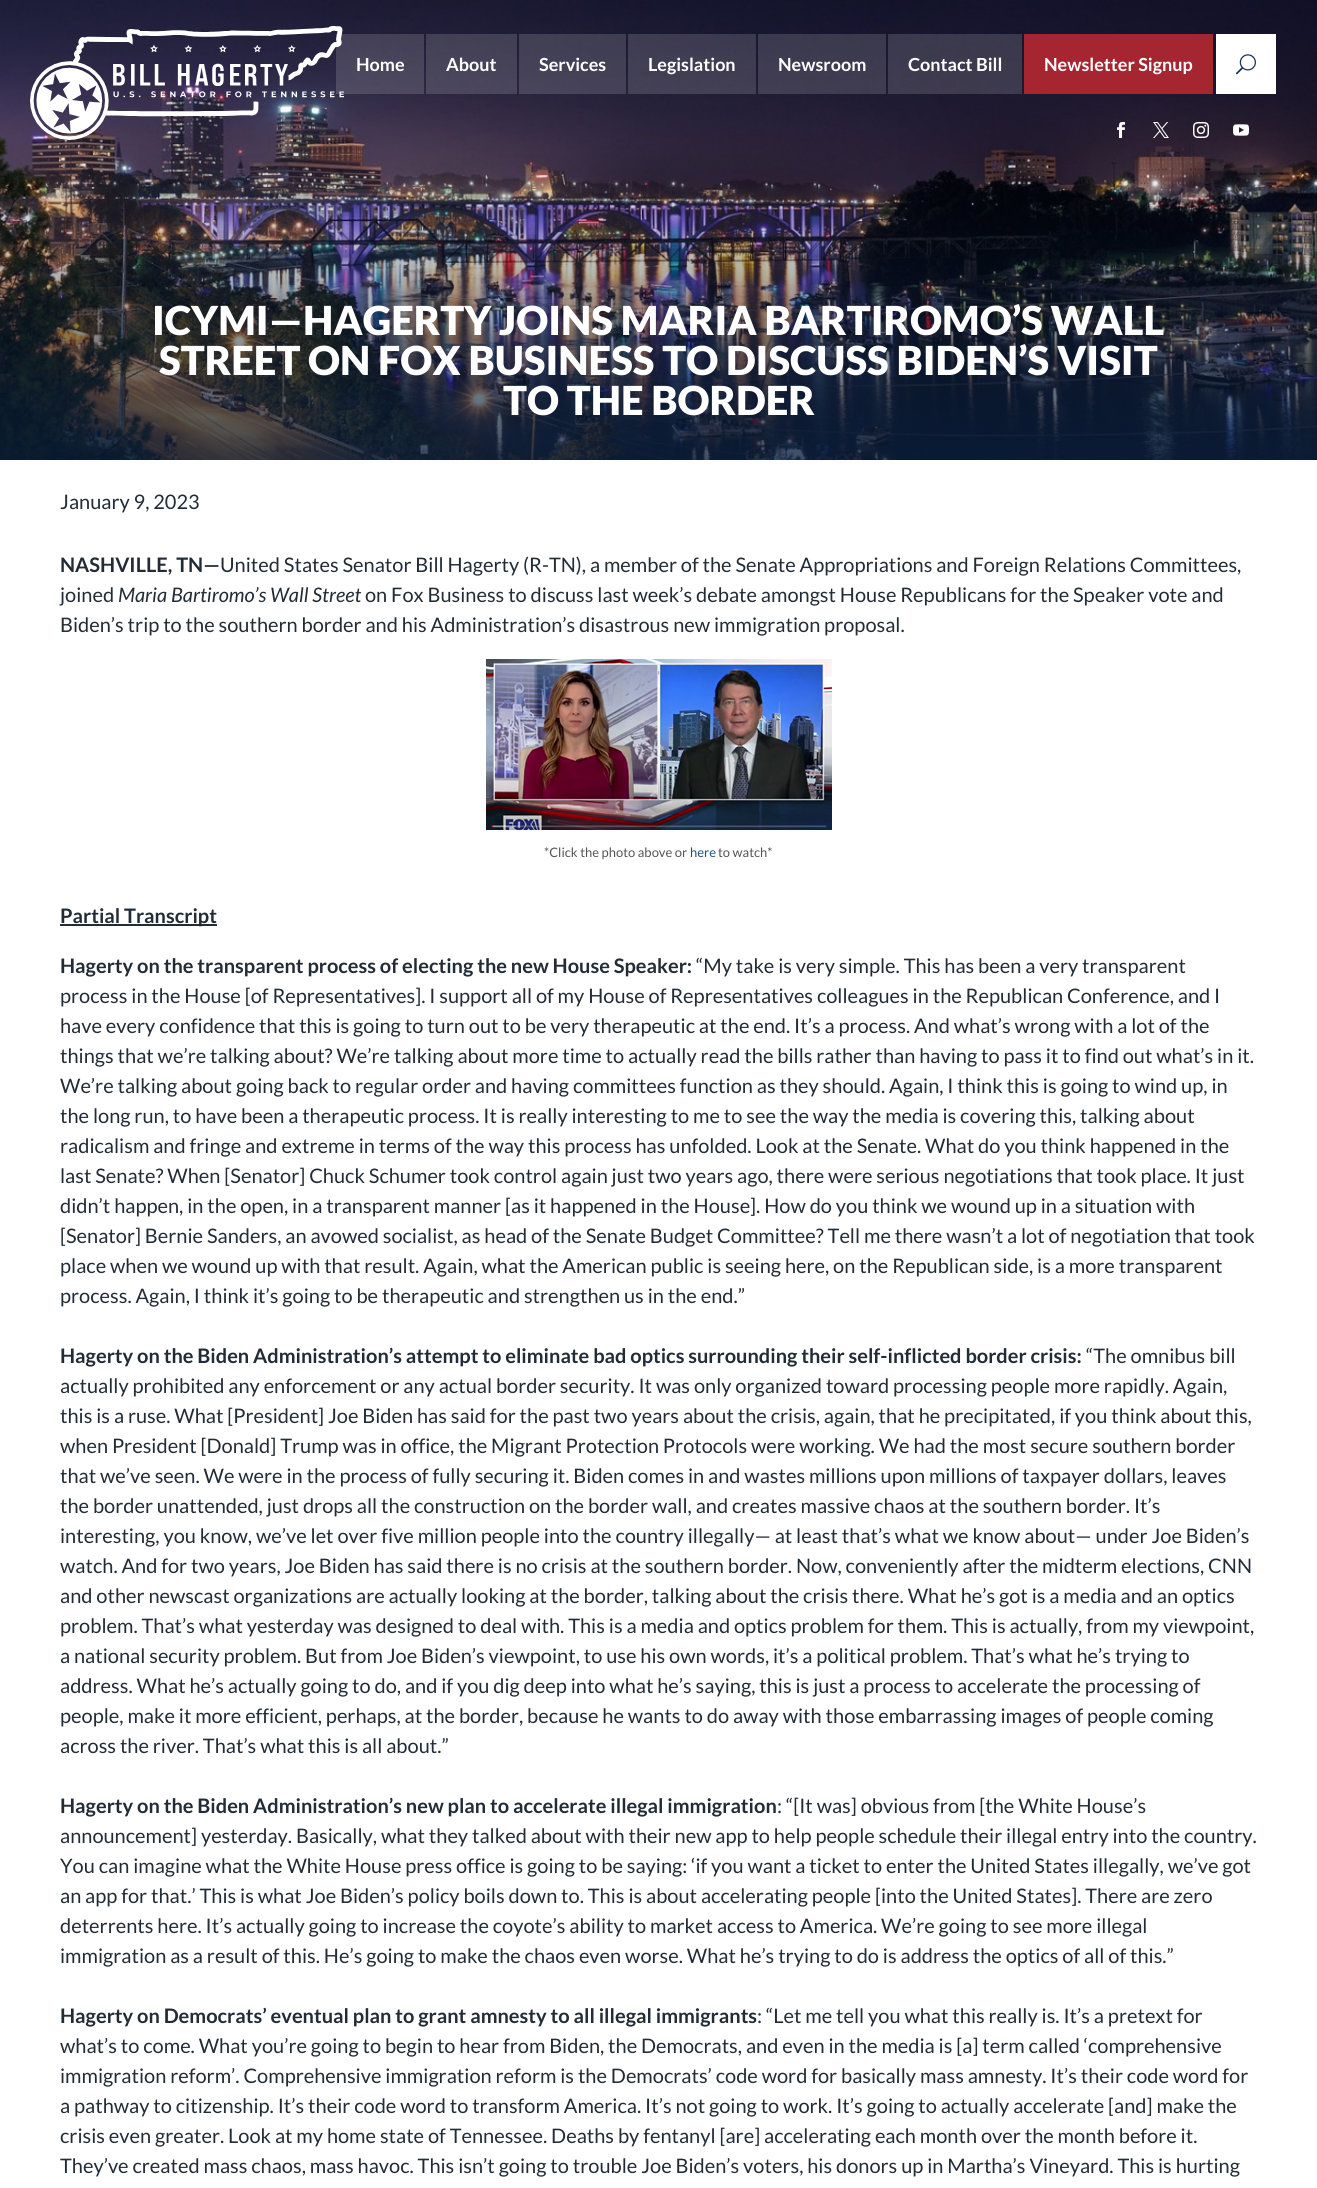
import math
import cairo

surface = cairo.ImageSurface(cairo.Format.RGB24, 1317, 2188)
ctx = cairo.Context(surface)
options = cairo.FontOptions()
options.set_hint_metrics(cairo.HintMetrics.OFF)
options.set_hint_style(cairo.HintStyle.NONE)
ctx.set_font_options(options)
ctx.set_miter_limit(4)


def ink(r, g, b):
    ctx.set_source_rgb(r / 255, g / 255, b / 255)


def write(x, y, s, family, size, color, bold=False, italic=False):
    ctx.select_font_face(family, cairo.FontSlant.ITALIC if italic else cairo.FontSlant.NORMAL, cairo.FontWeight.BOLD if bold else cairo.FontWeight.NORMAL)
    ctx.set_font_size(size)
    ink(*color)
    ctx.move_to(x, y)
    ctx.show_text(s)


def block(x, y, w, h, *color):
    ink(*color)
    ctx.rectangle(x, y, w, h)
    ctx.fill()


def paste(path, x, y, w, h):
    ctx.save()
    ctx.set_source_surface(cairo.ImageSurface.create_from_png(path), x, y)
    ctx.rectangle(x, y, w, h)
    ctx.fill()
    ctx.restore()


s1 = dict(family="Lato", size=18, color=(255, 255, 255), bold=True)
s2 = dict(family="Lato Black", size=40, color=(255, 255, 255))
s3 = dict(family="Lato", size=20, color=(34, 44, 54))
s4 = dict(family="Lato", size=20, color=(34, 44, 54), bold=True)
s5 = dict(family="Lato", size=20, color=(34, 44, 54), italic=True)
s6 = dict(family="Lato", size=13, color=(85, 85, 85))
s7 = dict(family="Lato", size=13, color=(29, 79, 140))

ink(255, 255, 255)
ctx.paint()
paste("pic7.png", 0, 0, 1317, 460)
paste("pic1.png", 30, 26, 314, 114)
ctx.set_source_rgba(1, 1, 1, 0.15)
ctx.rectangle(336, 34, 88, 60)
ctx.fill()
write(356, 71, "Home", **s1)
ctx.set_source_rgba(1, 1, 1, 0.15)
ctx.rectangle(426, 34, 91, 60)
ctx.fill()
write(446, 71, "About", **s1)
ctx.set_source_rgba(1, 1, 1, 0.15)
ctx.rectangle(519, 34, 107, 60)
ctx.fill()
write(539, 71, "Services", **s1)
ctx.set_source_rgba(1, 1, 1, 0.15)
ctx.rectangle(628, 34, 128, 60)
ctx.fill()
write(648, 71, "Legislation", **s1)
ctx.set_source_rgba(1, 1, 1, 0.15)
ctx.rectangle(758, 34, 128, 60)
ctx.fill()
write(778, 71, "Newsroom", **s1)
ctx.set_source_rgba(1, 1, 1, 0.15)
ctx.rectangle(888, 34, 134, 60)
ctx.fill()
write(908, 71, "Contact Bill", **s1)
block(1024, 34, 189, 60, 165, 38, 48)
write(1044, 71, "Newsletter Signup", **s1)
block(1216, 34, 60, 60, 255, 255, 255)
paste("pic2.png", 1236, 54, 20, 21)
paste("pic3.png", 1117, 122, 8, 16)
paste("pic4.png", 1153, 122, 16, 16)
paste("pic5.png", 1193, 122, 16, 16)
paste("pic6.png", 1233, 124, 16, 12)
write(152, 335, "ICYMI—HAGERTY JOINS MARIA BARTIROMO’S WALL", **s2)
write(159, 375, "STREET ON FOX BUSINESS TO DISCUSS BIDEN’S VISIT", **s2)
write(503, 415, "TO THE BORDER", **s2)
write(60, 509, "January 9, 2023", **s3)
write(60, 572, "NASHVILLE, TN—", **s4)
write(220, 572, "United States Senator Bill Hagerty (R-TN), a member of the Senate Appropriations and Foreign Relations Committees,", **s3)
write(60, 602, "joined", **s3)
write(118, 602, "Maria Bartiromo’s Wall Street", **s5)
write(365, 602, "on Fox Business to discuss last week’s debate amongst House Republicans for the Speaker vote and", **s3)
write(60, 632, "Biden’s trip to the southern border and his Administration’s disastrous new immigration proposal.", **s3)
paste("pic8.png", 486, 659, 346, 171)
write(544, 857, "*Click the photo above or", **s6)
write(690, 857, "here", **s7)
write(718, 857, "to watch*", **s6)
block(60, 924, 157, 2, 34, 44, 54)
write(60, 923, "Partial Transcript", **s4)
write(60, 973, "Hagerty on the transparent process of electing the new House Speaker:", **s4)
write(696, 973, "“My take is very simple. This has been a very transparent", **s3)
write(60, 1003, "process in the House [of Representatives]. I support all of my House of Representatives colleagues in the Republican Conference, and I", **s3)
write(60, 1033, "have every confidence that this is going to turn out to be very therapeutic at the end. It’s a process. And what’s wrong with a lot of the", **s3)
write(60, 1063, "things that we’re talking about? We’re talking about more time to actually read the bills rather than having to pass it to find out what’s in it.", **s3)
write(60, 1093, "We’re talking about going back to regular order and having committees function as they should. Again, I think this is going to wind up, in", **s3)
write(60, 1123, "the long run, to have been a therapeutic process. It is really interesting to me to see the way the media is covering this, talking about", **s3)
write(60, 1153, "radicalism and fringe and extreme in terms of the way this process has unfolded. Look at the Senate. What do you think happened in the", **s3)
write(60, 1183, "last Senate? When [Senator] Chuck Schumer took control again just two years ago, there were serious negotiations that took place. It just", **s3)
write(60, 1213, "didn’t happen, in the open, in a transparent manner [as it happened in the House]. How do you think we wound up in a situation with", **s3)
write(60, 1243, "[Senator] Bernie Sanders, an avowed socialist, as head of the Senate Budget Committee? Tell me there wasn’t a lot of negotiation that took", **s3)
write(60, 1273, "place when we wound up with that result. Again, what the American public is seeing here, on the Republican side, is a more transparent", **s3)
write(60, 1303, "process. Again, I think it’s going to be therapeutic and strengthen us in the end.”", **s3)
write(60, 1363, "Hagerty on the Biden Administration’s attempt to eliminate bad optics surrounding their self-inflicted border crisis:", **s4)
write(1086, 1363, "“The omnibus bill", **s3)
write(60, 1393, "actually prohibited any enforcement or any actual border security. It was only organized toward processing people more rapidly. Again,", **s3)
write(60, 1423, "this is a ruse. What [President] Joe Biden has said for the past two years about the crisis, again, that he precipitated, if you think about this,", **s3)
write(60, 1453, "when President [Donald] Trump was in office, the Migrant Protection Protocols were working. We had the most secure southern border", **s3)
write(60, 1483, "that we’ve seen. We were in the process of fully securing it. Biden comes in and wastes millions upon millions of taxpayer dollars, leaves", **s3)
write(60, 1513, "the border unattended, just drops all the construction on the border wall, and creates massive chaos at the southern border. It’s", **s3)
write(60, 1543, "interesting, you know, we’ve let over five million people into the country illegally— at least that’s what we know about— under Joe Biden’s", **s3)
write(60, 1573, "watch. And for two years, Joe Biden has said there is no crisis at the southern border. Now, conveniently after the midterm elections, CNN", **s3)
write(60, 1603, "and other newscast organizations are actually looking at the border, talking about the crisis there. What he’s got is a media and an optics", **s3)
write(60, 1633, "problem. That’s what yesterday was designed to deal with. This is a media and optics problem for them. This is actually, from my viewpoint,", **s3)
write(60, 1663, "a national security problem. But from Joe Biden’s viewpoint, to use his own words, it’s a political problem. That’s what he’s trying to", **s3)
write(60, 1693, "address. What he’s actually going to do, and if you dig deep into what he’s saying, this is just a process to accelerate the processing of", **s3)
write(60, 1723, "people, make it more efficient, perhaps, at the border, because he wants to do away with those embarrassing images of people coming", **s3)
write(60, 1753, "across the river. That’s what this is all about.”", **s3)
write(60, 1813, "Hagerty on the Biden Administration’s new plan to accelerate illegal immigration", **s4)
write(777, 1813, ": “[It was] obvious from [the White House’s", **s3)
write(60, 1843, "announcement] yesterday. Basically, what they talked about with their new app to help people schedule their illegal entry into the country.", **s3)
write(60, 1873, "You can imagine what the White House press office is going to be saying: ‘if you want a ticket to enter the United States illegally, we’ve got", **s3)
write(60, 1903, "an app for that.’ This is what Joe Biden’s policy boils down to. This is about accelerating people [into the United States]. There are zero", **s3)
write(60, 1933, "deterrents here. It’s actually going to increase the coyote’s ability to market access to America. We’re going to see more illegal", **s3)
write(60, 1963, "immigration as a result of this. He’s going to make the chaos even worse. What he’s trying to do is address the optics of all of this.”", **s3)
write(60, 2023, "Hagerty on Democrats’ eventual plan to grant amnesty to all illegal immigrants", **s4)
write(757, 2023, ": “Let me tell you what this really is. It’s a pretext for", **s3)
write(60, 2053, "what’s to come. What you’re going to begin to hear from Biden, the Democrats, and even in the media is [a] term called ‘comprehensive", **s3)
write(60, 2083, "immigration reform’. Comprehensive immigration reform is the Democrats’ code word for basically mass amnesty. It’s their code word for", **s3)
write(60, 2113, "a pathway to citizenship. It’s their code word to transform America. It’s not going to work. It’s going to actually accelerate [and] make the", **s3)
write(60, 2143, "crisis even greater. Look at my home state of Tennessee. Deaths by fentanyl [are] accelerating each month over the month before it.", **s3)
write(60, 2173, "They’ve created mass chaos, mass havoc. This isn’t going to trouble Joe Biden’s voters, his donors up in Martha’s Vineyard. This is hurting", **s3)
surface.write_to_png("screenshot.png")
